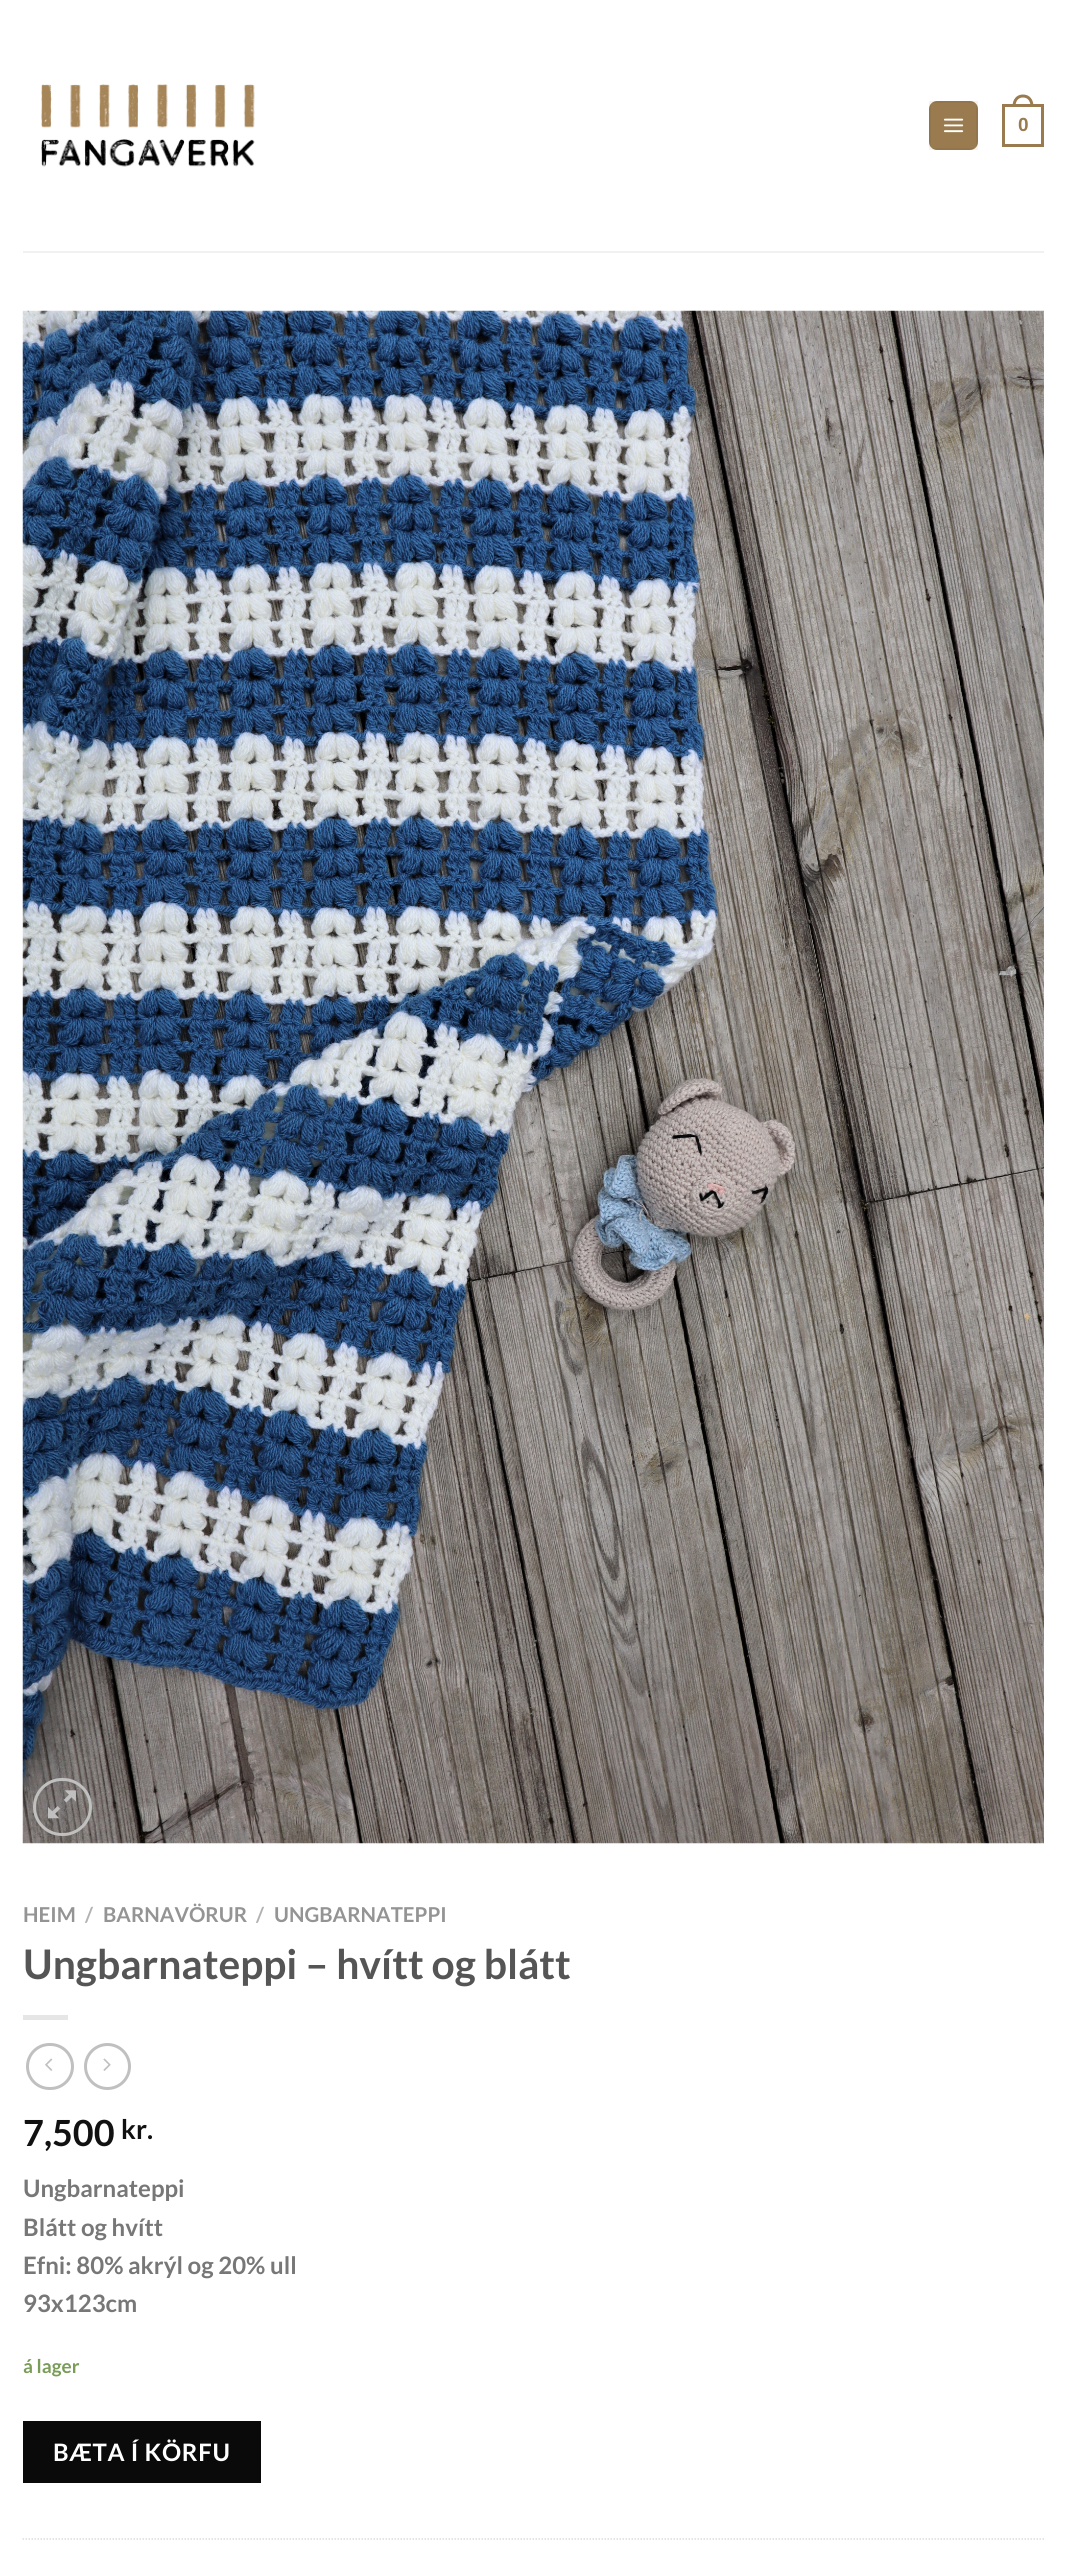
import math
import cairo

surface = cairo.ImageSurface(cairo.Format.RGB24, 1066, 2563)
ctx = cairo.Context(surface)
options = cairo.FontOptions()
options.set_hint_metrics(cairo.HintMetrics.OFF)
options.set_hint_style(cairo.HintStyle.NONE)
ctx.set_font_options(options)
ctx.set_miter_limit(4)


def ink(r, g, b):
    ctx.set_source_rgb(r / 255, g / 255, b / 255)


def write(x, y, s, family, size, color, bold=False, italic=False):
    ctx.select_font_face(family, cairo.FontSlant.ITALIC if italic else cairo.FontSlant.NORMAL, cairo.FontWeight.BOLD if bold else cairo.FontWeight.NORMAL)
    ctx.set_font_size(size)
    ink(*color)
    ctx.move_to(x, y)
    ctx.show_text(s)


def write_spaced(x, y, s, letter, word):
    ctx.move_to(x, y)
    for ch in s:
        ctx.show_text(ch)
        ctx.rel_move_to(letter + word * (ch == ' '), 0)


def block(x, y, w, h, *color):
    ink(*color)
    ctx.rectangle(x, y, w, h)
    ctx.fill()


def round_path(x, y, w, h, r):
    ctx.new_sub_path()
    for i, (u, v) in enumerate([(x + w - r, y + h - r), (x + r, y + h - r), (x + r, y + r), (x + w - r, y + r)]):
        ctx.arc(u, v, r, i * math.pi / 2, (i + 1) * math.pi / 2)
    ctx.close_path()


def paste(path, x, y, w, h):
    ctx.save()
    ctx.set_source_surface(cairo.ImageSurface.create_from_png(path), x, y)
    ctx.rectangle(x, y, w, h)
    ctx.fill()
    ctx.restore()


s1 = dict(family="Liberation Sans", size=19, color=(154, 123, 79), bold=True)
s2 = dict(family="Lato", size=20.5, color=(148, 148, 148), bold=True)
s3 = dict(family="Lato", size=20.5, color=(178, 178, 178), bold=True)
s4 = dict(family="Lato", size=40.75, color=(85, 85, 85), bold=True)
s5 = dict(family="Lato", size=36, color=(17, 17, 17), bold=True)
s6 = dict(family="Lato", size=27, color=(17, 17, 17), bold=True)
s7 = dict(family="Lato", size=24, color=(119, 119, 119), bold=True)
s8 = dict(family="Lato", size=19, color=(122, 156, 89), bold=True)

ink(255, 255, 255)
ctx.paint()
paste("pic1.png", 41, 84, 214, 83)
ink(154, 123, 79)
round_path(929, 101, 49, 49, 8)
ctx.fill()
ctx.rectangle(930, 102, 47, 47)
ctx.set_source_rgba(0, 0, 0, 0.05)
ctx.stroke()
paste("pic2.png", 943, 118, 21, 15)
ctx.rectangle(1003.5, 105.5, 39, 40)
ink(154, 123, 79)
ctx.set_line_width(3)
ctx.stroke()
ctx.set_fill_rule(cairo.FillRule.EVEN_ODD)
ctx.new_path()
ctx.move_to(1023, 94.5)
ctx.curve_to(1030, 94.5, 1033.5, 100, 1033.5, 106.5)
ctx.line_to(1012.5, 106.5)
ctx.curve_to(1012.5, 100, 1016, 94.5, 1023, 94.5)
ctx.close_path()
ctx.move_to(1023, 97.5)
ctx.curve_to(1028.5, 97.5, 1030.5, 102, 1030.5, 106.5)
ctx.line_to(1015.5, 106.5)
ctx.curve_to(1015.5, 102, 1017.5, 97.5, 1023, 97.5)
ctx.close_path()
ctx.fill()
write(1018, 131, "0", **s1)
block(23, 251, 1021, 2, 241, 241, 241)
paste("pic3.png", 22, 310, 1022, 1534)
round_path(34.5, 1779.5, 56, 55, 27.5)
ink(192, 192, 192)
ctx.stroke()
paste("pic4.png", 48, 1790, 28, 29)
write(23, 1922, "HEIM", **s2)
write(85, 1922, "/", **s3)
write(103, 1922, "BARNAVÖRUR", **s2)
write(256, 1922, "/", **s3)
write(274, 1922, "UNGBARNATEPPI", **s2)
write(23, 1979, "Ungbarnateppi – hvítt og blátt", **s4)
block(23, 2015, 45, 5, 230, 230, 230)
round_path(27.5, 2044.5, 45, 44, 22)
ink(192, 192, 192)
ctx.stroke()
paste("pic5.png", 45, 2058, 8, 13)
ctx.arc(107.5, 2066.5, 22, 0, 2 * math.pi)
ctx.stroke()
paste("pic6.png", 103, 2058, 8, 13)
write(23, 2146, "7,500", **s5)
write(121, 2139, "kr.", **s6)
write(23, 2197, "Ungbarnateppi", **s7)
write(23, 2236, "Blátt og hvítt", **s7)
write(23, 2274, "Efni: 80% akrýl og 20% ull", **s7)
write(23, 2312, "93x123cm", **s7)
write(23, 2373, "á lager", **s8)
block(23, 2421, 238, 62, 10, 10, 10)
ctx.set_font_size(24)
ink(255, 255, 255)
write_spaced(53, 2461, "BÆTA Í KÖRFU", 0.75, 0)
ctx.new_path()
ctx.move_to(22.5, 2539)
ctx.line_to(1044, 2539)
ink(221, 221, 221)
ctx.set_line_width(1.5)
ctx.set_dash([1.5, 1.5])
ctx.stroke()
surface.write_to_png("screenshot.png")
